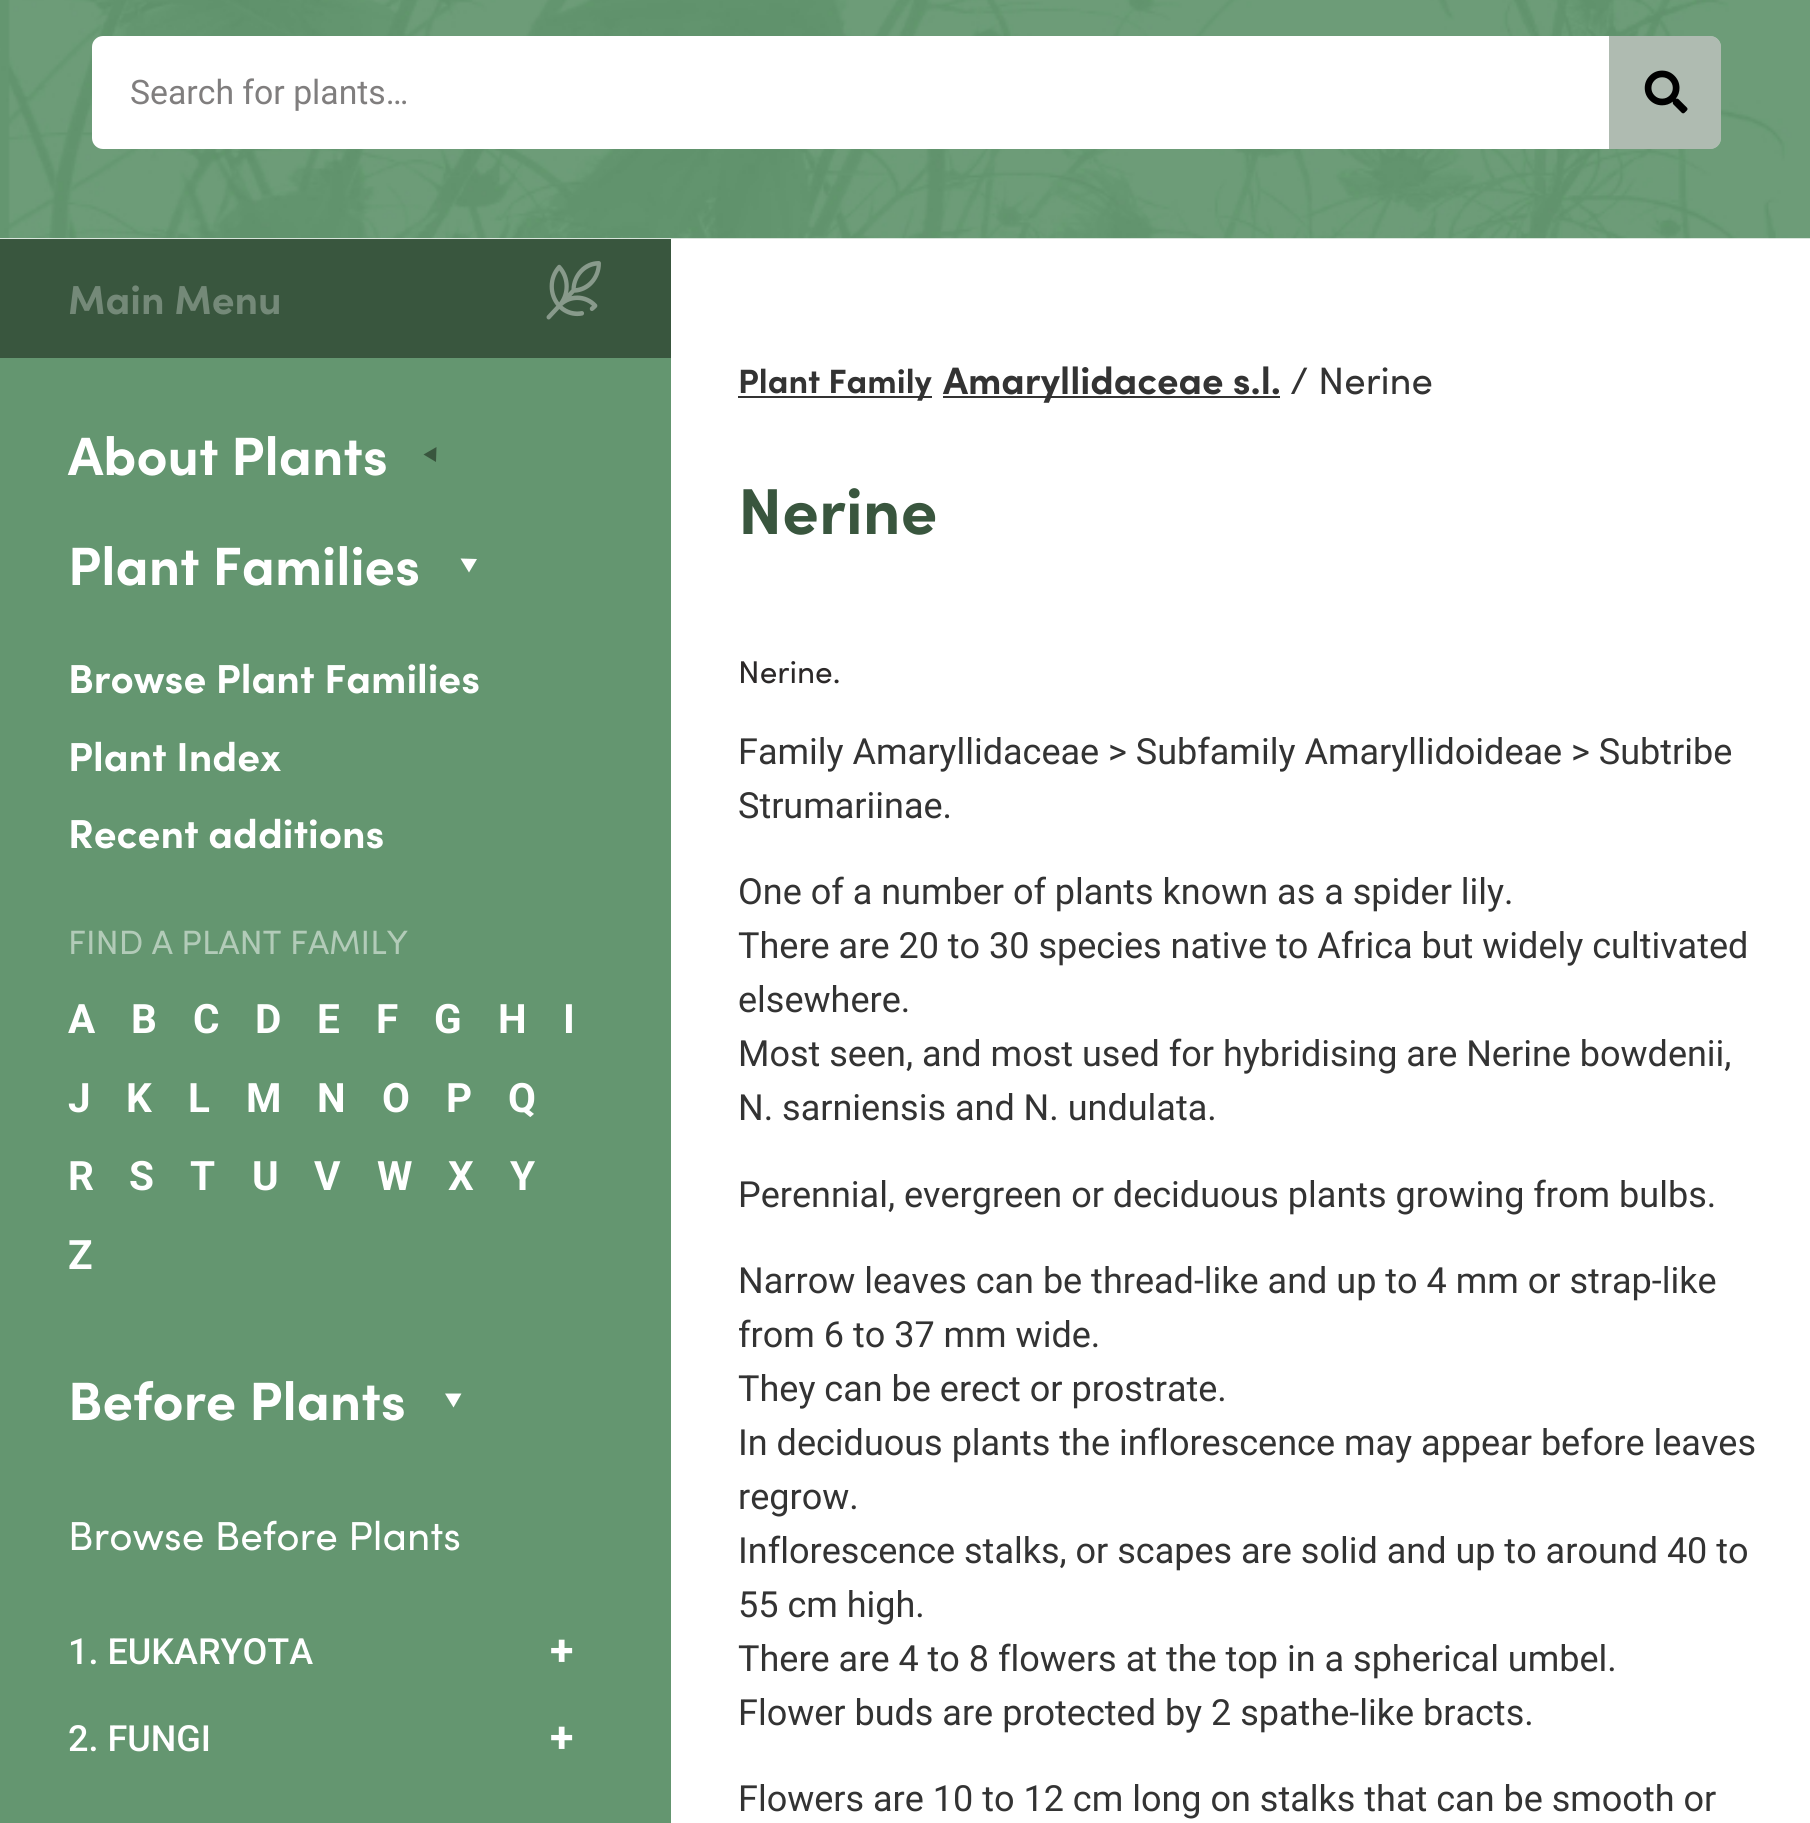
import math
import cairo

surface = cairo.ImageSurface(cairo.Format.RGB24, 1810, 1823)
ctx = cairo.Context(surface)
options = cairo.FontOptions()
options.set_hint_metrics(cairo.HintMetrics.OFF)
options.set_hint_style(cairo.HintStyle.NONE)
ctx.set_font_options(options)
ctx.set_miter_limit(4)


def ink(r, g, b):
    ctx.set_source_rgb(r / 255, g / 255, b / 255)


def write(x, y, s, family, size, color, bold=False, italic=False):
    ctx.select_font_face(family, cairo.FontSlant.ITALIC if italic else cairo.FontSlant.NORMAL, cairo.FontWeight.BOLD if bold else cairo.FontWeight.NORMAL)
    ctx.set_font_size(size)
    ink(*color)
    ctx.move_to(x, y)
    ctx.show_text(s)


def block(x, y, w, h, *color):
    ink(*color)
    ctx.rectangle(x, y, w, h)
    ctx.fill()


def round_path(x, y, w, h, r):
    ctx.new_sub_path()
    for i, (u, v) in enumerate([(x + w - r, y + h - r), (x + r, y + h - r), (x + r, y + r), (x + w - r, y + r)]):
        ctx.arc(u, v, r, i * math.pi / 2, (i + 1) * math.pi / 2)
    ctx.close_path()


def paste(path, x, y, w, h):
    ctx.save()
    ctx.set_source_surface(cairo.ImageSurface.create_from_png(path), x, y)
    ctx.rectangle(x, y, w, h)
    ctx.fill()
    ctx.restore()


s1 = dict(family="Roboto", size=33.75, color=(128, 126, 126))
s2 = dict(family="Sofia", size=40.5, color=(116, 137, 120), bold=True)
s3 = dict(family="Sofia", size=54, color=(255, 255, 255), bold=True)
s4 = dict(family="Sofia", size=40.5, color=(255, 255, 255), bold=True)
s5 = dict(family="Sofia", size=33.75, color=(178, 203, 184))
s6 = dict(family="Roboto", size=40.5, color=(255, 255, 255), bold=True)
s7 = dict(family="Sofia", size=40.5, color=(255, 255, 255))
s8 = dict(family="Roboto Medium", size=36, color=(255, 255, 255))
s9 = dict(family="Roboto", size=43, color=(255, 255, 255), bold=True)
s10 = dict(family="Sofia", size=33.75, color=(51, 51, 51), bold=True)
s11 = dict(family="Sofia", size=38.25, color=(51, 51, 51), bold=True)
s12 = dict(family="Sofia", size=38.25, color=(51, 51, 51))
s13 = dict(family="Sofia", size=65, color=(57, 86, 62), bold=True)
s14 = dict(family="Sofia", size=31.5, color=(43, 40, 40))
s15 = dict(family="Roboto", size=36, color=(51, 51, 51))

ink(255, 255, 255)
ctx.paint()
paste("pic1.png", 0, 0, 1810, 239)
ink(255, 255, 255)
round_path(92, 36, 1629, 113, 11)
ctx.fill()
write(130, 104, "Search for plants…", **s1)
ctx.set_source_rgba(0.224, 0.337, 0.243, 0.4)
ctx.new_path()
ctx.move_to(1609, 36)
ctx.line_to(1710, 36)
ctx.curve_to(1716, 36, 1721, 41, 1721, 47)
ctx.line_to(1721, 138)
ctx.curve_to(1721, 144, 1716, 149, 1710, 149)
ctx.line_to(1609, 149)
ctx.close_path()
ctx.fill()
paste("pic2.png", 1644, 70, 44, 44)
block(0, 358, 671, 1465, 100, 150, 112)
block(0, 239, 671, 119, 57, 86, 62)
write(68, 314, "Main Menu", **s2)
paste("pic3.png", 546, 261, 55, 59)
ink(57, 86, 62)
ctx.new_path()
ctx.move_to(436.5, 447)
ctx.line_to(436, 462)
ctx.line_to(423.5, 454.5)
ctx.close_path()
ctx.fill()
write(68, 475, "About Plants", **s3)
ctx.new_path()
ctx.move_to(460.5, 558.5)
ctx.line_to(477, 559)
ctx.line_to(469, 572.5)
ctx.close_path()
ctx.fill()
write(68, 585, "Plant Families", **s3)
write(68, 693, "Browse Plant Families", **s4)
write(68, 771, "Plant Index", **s4)
write(68, 848, "Recent additions", **s4)
write(68, 954, "FIND A PLANT FAMILY", **s5)
write(68, 1033, "A", **s6)
write(131, 1033, "B", **s6)
write(193, 1033, "C", **s6)
write(255, 1033, "D", **s6)
write(317, 1033, "E", **s6)
write(376, 1033, "F", **s6)
write(434, 1033, "G", **s6)
write(498, 1033, "H", **s6)
write(563, 1033, "I", **s6)
write(68, 1112, "J", **s6)
write(126, 1112, "K", **s6)
write(188, 1112, "L", **s6)
write(246, 1112, "M", **s6)
write(317, 1112, "N", **s6)
write(382, 1112, "O", **s6)
write(446, 1112, "P", **s6)
write(508, 1112, "Q", **s6)
write(68, 1190, "R", **s6)
write(129, 1190, "S", **s6)
write(190, 1190, "T", **s6)
write(252, 1190, "U", **s6)
write(314, 1190, "V", **s6)
write(377, 1190, "W", **s6)
write(448, 1190, "X", **s6)
write(510, 1190, "Y", **s6)
write(68, 1269, "Z", **s6)
ctx.new_path()
ctx.move_to(445, 1393.5)
ctx.line_to(461.5, 1393.5)
ctx.line_to(453.5, 1407.5)
ctx.close_path()
ctx.fill()
write(68, 1420, "Before Plants", **s3)
write(68, 1550, "Browse Before Plants", **s7)
write(68, 1664, "1. EUKARYOTA", **s8)
write(550, 1665, "+", **s9)
write(68, 1751, "2. FUNGI", **s8)
write(550, 1752, "+", **s9)
block(738, 396, 194, 2, 51, 51, 51)
write(738, 393, "Plant Family", **s10)
block(943, 396, 337, 2, 51, 51, 51)
write(943, 394, "Amaryllidaceae s.l.", **s11)
write(1290, 394, "/ Nerine", **s12)
write(738, 534, "Nerine", **s13)
write(738, 683, "Nerine.", **s14)
write(738, 764, "Family Amaryllidaceae > Subfamily Amaryllidoideae > Subtribe", **s15)
write(738, 818, "Strumariinae.", **s15)
write(738, 904, "One of a number of plants known as a spider lily.", **s15)
write(738, 958, "There are 20 to 30 species native to Africa but widely cultivated", **s15)
write(738, 1012, "elsewhere.", **s15)
write(738, 1066, "Most seen, and most used for hybridising are Nerine bowdenii,", **s15)
write(738, 1120, "N. sarniensis and N. undulata.", **s15)
write(738, 1207, "Perennial, evergreen or deciduous plants growing from bulbs.", **s15)
write(738, 1293, "Narrow leaves can be thread-like and up to 4 mm or strap-like", **s15)
write(738, 1347, "from 6 to 37 mm wide.", **s15)
write(738, 1401, "They can be erect or prostrate.", **s15)
write(738, 1455, "In deciduous plants the inflorescence may appear before leaves", **s15)
write(738, 1509, "regrow.", **s15)
write(738, 1563, "Inflorescence stalks, or scapes are solid and up to around 40 to", **s15)
write(738, 1617, "55 cm high.", **s15)
write(738, 1671, "There are 4 to 8 flowers at the top in a spherical umbel.", **s15)
write(738, 1725, "Flower buds are protected by 2 spathe-like bracts.", **s15)
write(738, 1811, "Flowers are 10 to 12 cm long on stalks that can be smooth or", **s15)
surface.write_to_png("screenshot.png")
